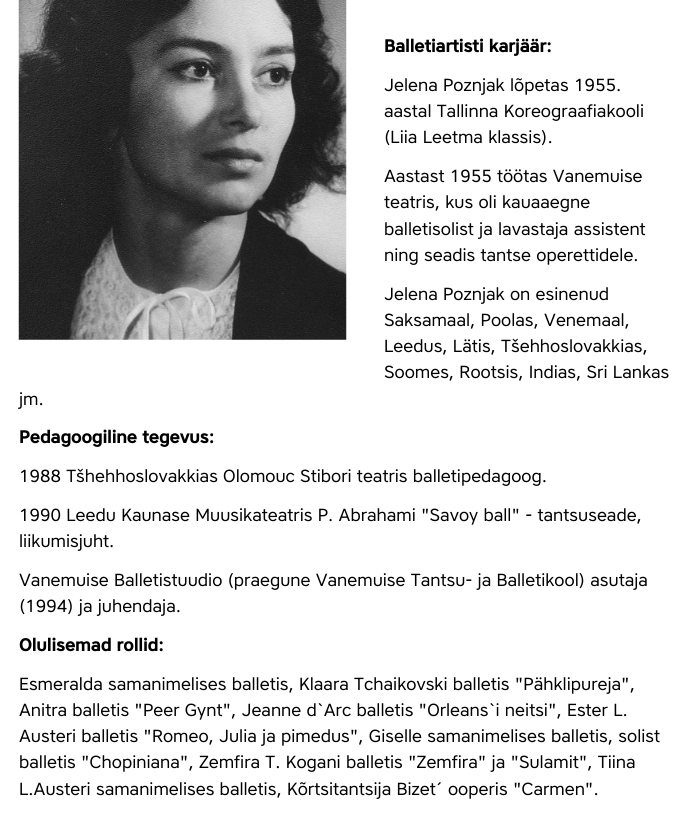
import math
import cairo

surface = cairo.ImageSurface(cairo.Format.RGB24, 692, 818)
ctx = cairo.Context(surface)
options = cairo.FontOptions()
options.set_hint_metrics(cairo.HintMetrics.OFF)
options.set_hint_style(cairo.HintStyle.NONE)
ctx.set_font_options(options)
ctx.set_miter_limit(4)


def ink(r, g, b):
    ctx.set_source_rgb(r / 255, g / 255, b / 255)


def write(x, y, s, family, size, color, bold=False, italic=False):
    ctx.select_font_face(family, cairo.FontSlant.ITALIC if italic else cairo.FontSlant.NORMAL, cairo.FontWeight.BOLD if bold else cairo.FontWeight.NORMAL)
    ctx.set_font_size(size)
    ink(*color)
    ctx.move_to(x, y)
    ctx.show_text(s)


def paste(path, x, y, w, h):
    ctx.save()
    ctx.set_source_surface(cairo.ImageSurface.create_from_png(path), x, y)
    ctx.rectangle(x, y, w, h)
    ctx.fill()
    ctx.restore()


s1 = dict(family="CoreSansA", size=17.5, color=(0, 0, 0), bold=True)
s2 = dict(family="CoreSansA", size=17.5, color=(0, 0, 0))

ink(255, 255, 255)
ctx.paint()
paste("pic1.png", 18, 0, 329, 340)
write(384, 52, "Balletiartisti karjäär:", **s1)
write(384, 91, "Jelena Poznjak lõpetas 1955.", **s2)
write(384, 117, "aastal Tallinna Koreograafiakooli", **s2)
write(384, 143, "(Liia Leetma klassis).", **s2)
write(384, 182, "Aastast 1955 töötas Vanemuise", **s2)
write(384, 208, "teatris, kus oli kauaaegne", **s2)
write(384, 235, "balletisolist ja lavastaja assistent", **s2)
write(384, 261, "ning seadis tantse operettidele.", **s2)
write(384, 300, "Jelena Poznjak on esinenud", **s2)
write(384, 326, "Saksamaal, Poolas, Venemaal,", **s2)
write(384, 352, "Leedus, Lätis, Tšehhoslovakkias,", **s2)
write(384, 378, "Soomes, Rootsis, Indias, Sri Lankas", **s2)
write(19, 405, "jm.", **s2)
write(19, 443, "Pedagoogiline tegevus:", **s1)
write(19, 482, "1988 Tšhehhoslovakkias Olomouc Stibori teatris balletipedagoog.", **s2)
write(19, 521, "1990 Leedu Kaunase Muusikateatris P. Abrahami \"Savoy ball\" - tantsuseade,", **s2)
write(19, 547, "liikumisjuht.", **s2)
write(19, 586, "Vanemuise Balletistuudio (praegune Vanemuise Tantsu- ja Balletikool) asutaja", **s2)
write(19, 612, "(1994) ja juhendaja.", **s2)
write(19, 651, "Olulisemad rollid:", **s1)
write(19, 690, "Esmeralda samanimelises balletis, Klaara Tchaikovski balletis \"Pähklipureja\",", **s2)
write(19, 716, "Anitra balletis \"Peer Gynt\", Jeanne d`Arc balletis \"Orleans`i neitsi\", Ester L.", **s2)
write(19, 742, "Austeri balletis \"Romeo, Julia ja pimedus\", Giselle samanimelises balletis, solist", **s2)
write(19, 768, "balletis \"Chopiniana\", Zemfira T. Kogani balletis \"Zemfira\" ja \"Sulamit\", Tiina", **s2)
write(19, 795, "L.Austeri samanimelises balletis, Kõrtsitantsija Bizet´ ooperis \"Carmen\".", **s2)
surface.write_to_png("screenshot.png")
